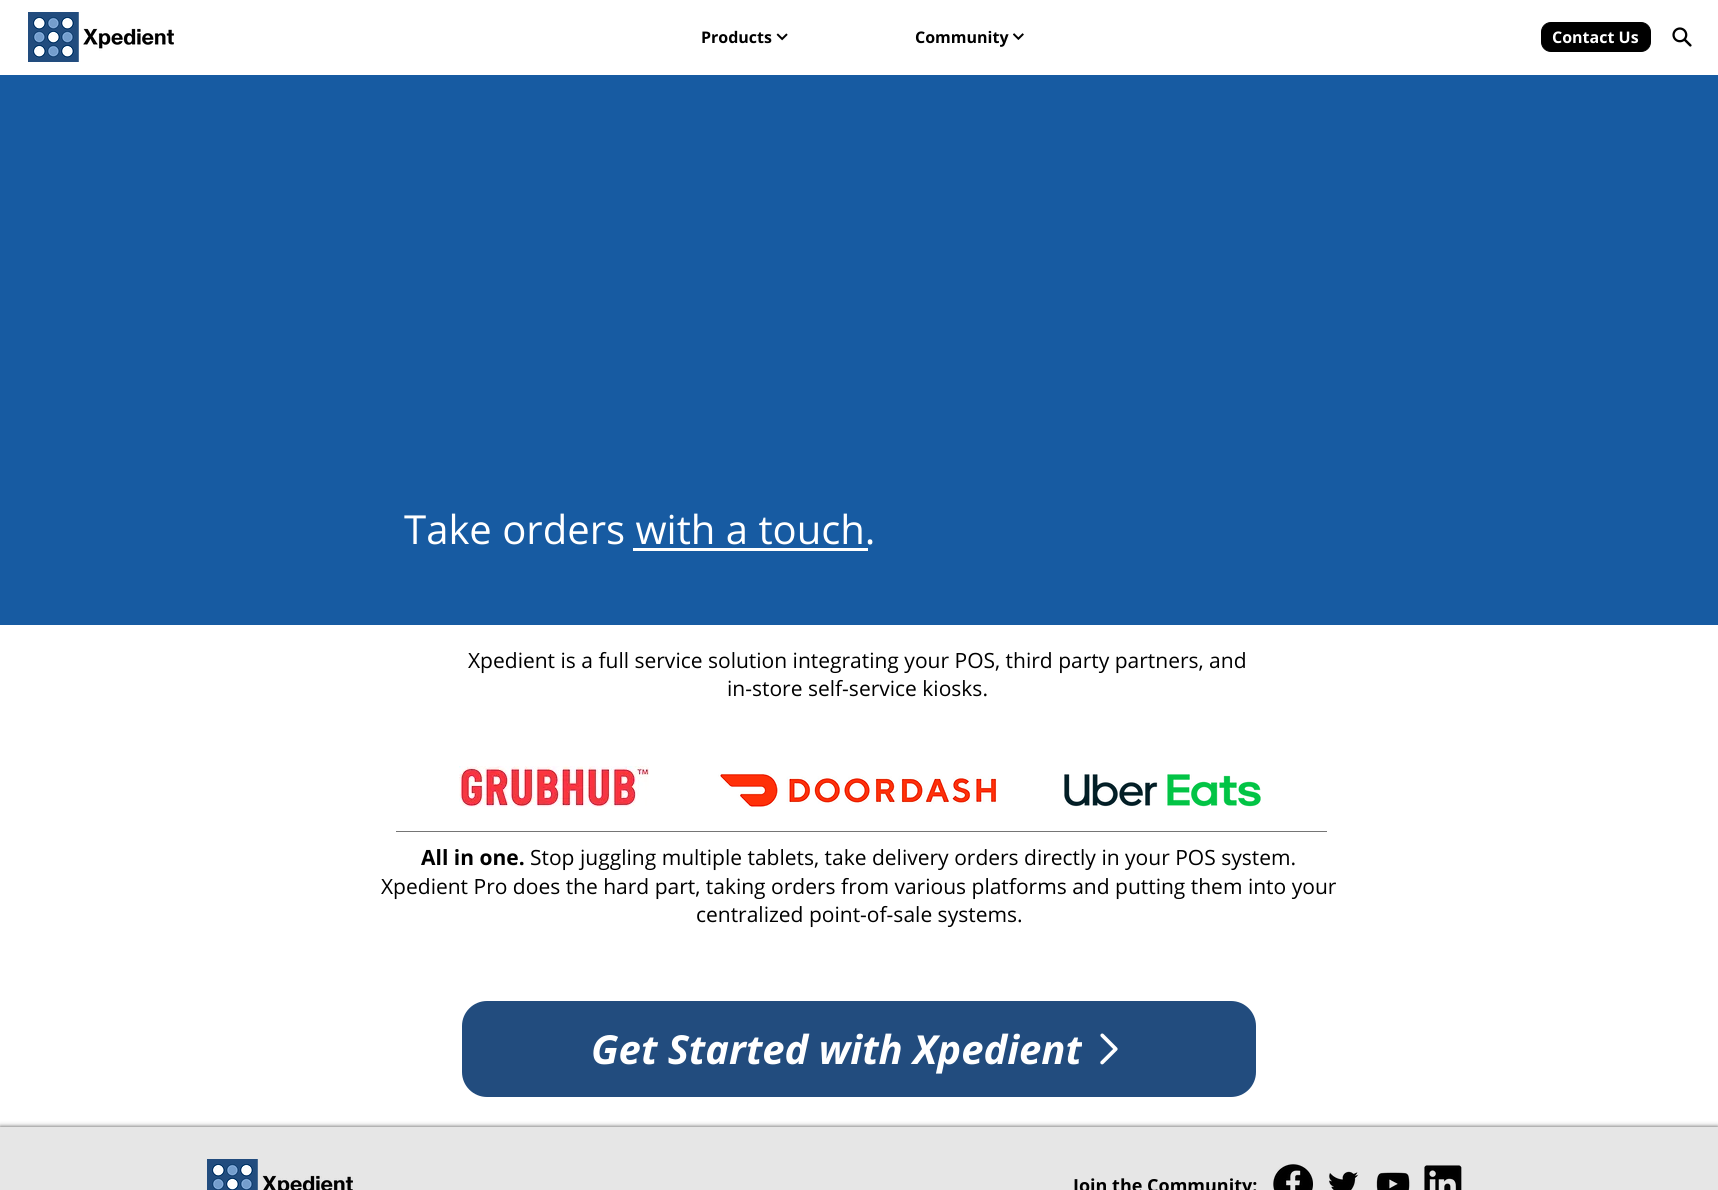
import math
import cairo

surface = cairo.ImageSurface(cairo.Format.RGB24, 1718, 1190)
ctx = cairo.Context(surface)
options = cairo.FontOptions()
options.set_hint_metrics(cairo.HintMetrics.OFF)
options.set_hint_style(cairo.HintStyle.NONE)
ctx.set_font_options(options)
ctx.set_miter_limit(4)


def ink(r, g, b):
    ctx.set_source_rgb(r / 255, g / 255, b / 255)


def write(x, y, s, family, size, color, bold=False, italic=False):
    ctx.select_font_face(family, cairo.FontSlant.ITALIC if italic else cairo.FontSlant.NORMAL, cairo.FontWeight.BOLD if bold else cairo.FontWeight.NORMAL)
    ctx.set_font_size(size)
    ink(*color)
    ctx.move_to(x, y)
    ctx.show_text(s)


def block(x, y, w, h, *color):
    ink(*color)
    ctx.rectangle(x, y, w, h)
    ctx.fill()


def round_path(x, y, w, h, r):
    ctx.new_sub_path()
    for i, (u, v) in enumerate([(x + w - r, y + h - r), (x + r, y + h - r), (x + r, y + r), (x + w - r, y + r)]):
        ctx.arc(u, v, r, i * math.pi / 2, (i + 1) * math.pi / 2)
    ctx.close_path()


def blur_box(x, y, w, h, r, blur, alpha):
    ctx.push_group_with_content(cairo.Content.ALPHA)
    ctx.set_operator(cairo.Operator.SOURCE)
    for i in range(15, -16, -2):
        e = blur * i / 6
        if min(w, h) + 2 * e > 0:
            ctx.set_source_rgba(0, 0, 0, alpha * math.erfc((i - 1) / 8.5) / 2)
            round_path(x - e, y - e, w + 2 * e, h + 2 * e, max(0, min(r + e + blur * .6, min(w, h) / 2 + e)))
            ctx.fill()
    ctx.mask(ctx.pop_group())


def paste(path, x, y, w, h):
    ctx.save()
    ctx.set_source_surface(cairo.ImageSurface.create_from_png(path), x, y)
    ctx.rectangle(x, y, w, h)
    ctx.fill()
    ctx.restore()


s1 = dict(family="Open Sans", size=16, color=(0, 0, 0), bold=True)
s2 = dict(family="Open Sans", size=16, color=(255, 255, 255), bold=True)
s3 = dict(family="Open Sans", size=40, color=(255, 255, 255))
s4 = dict(family="Open Sans", size=21, color=(0, 0, 0))
s5 = dict(family="Open Sans", size=21, color=(0, 0, 0), bold=True)
s6 = dict(family="Open Sans", size=40, color=(255, 255, 255), bold=True, italic=True)
s7 = dict(family="Open Sans", size=18, color=(0, 0, 0), bold=True)

ink(255, 255, 255)
ctx.paint()
paste("pic1.png", 28, 12, 146, 50)
write(701, 43, "Products", **s1)
paste("pic2.png", 776, 33, 12, 8)
write(915, 43, "Community", **s1)
paste("pic3.png", 1013, 33, 11, 7)
round_path(1541.5, 22.5, 109, 29, 9.5)
ctx.fill_preserve()
ctx.set_line_width(1)
ctx.stroke()
write(1552, 43, "Contact Us", **s2)
paste("pic4.png", 1672, 27, 20, 20)
block(0, 75, 1718, 550, 23, 91, 162)
write(404, 544, "Take orders with a touch.", **s3)
block(633, 548, 235, 3, 255, 255, 255)
write(468, 668, "Xpedient is a full service solution integrating your POS, third party partners, and", **s4)
write(727, 696, "in-store self-service kiosks.", **s4)
paste("pic5.png", 459, 766, 190, 41)
paste("pic6.png", 718, 773, 279, 34)
paste("pic7.png", 1064, 774, 197, 33)
block(396, 831, 931, 1, 117, 117, 117)
write(421, 865, "All in one.", **s5)
write(530, 865, "Stop juggling multiple tablets, take delivery orders directly in your POS system.", **s4)
write(381, 894, "Xpedient Pro does the hard part, taking orders from various platforms and putting them into your", **s4)
write(696, 922, "centralized point-of-sale systems.", **s4)
ink(34, 76, 126)
round_path(462, 1001, 794, 96, 25)
ctx.fill()
ctx.save()
ctx.rectangle(591, 1021, 491, 56)
ctx.clip()
write(591, 1064, "Get Started with Xpedient", **s6)
ctx.restore()
paste("pic8.png", 1100, 1033, 18, 32)
ink(0, 0, 0)
blur_box(0, 1127, 1718, 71, 0, 2.5, 0.7)
block(0, 1127, 1718, 63, 230, 230, 230)
paste("pic9.png", 207, 1159, 146, 31)
write(1073, 1192, "Join the Community:", **s7)
paste("pic10.png", 1273, 1164, 40, 26)
paste("pic11.png", 1329, 1171, 30, 19)
paste("pic12.png", 1376, 1172, 34, 18)
paste("pic13.png", 1424, 1165, 38, 25)
surface.write_to_png("screenshot.png")
